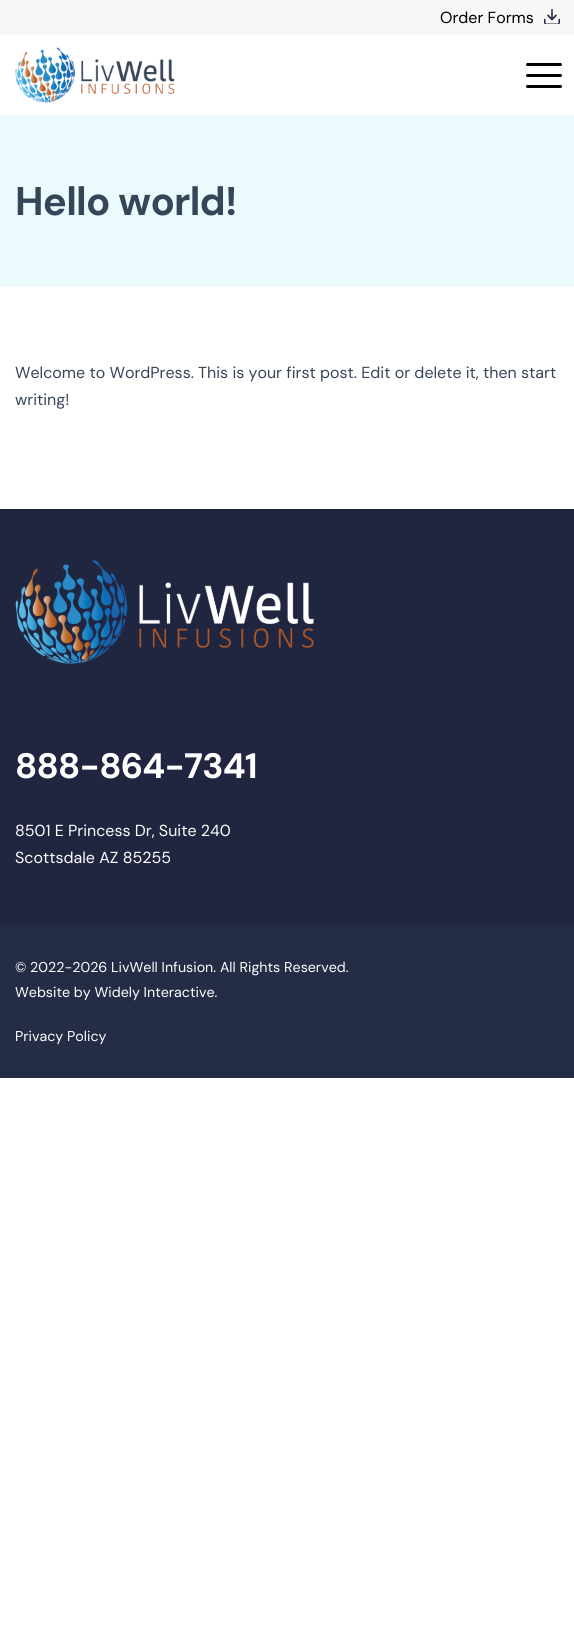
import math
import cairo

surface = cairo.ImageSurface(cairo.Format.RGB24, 574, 1637)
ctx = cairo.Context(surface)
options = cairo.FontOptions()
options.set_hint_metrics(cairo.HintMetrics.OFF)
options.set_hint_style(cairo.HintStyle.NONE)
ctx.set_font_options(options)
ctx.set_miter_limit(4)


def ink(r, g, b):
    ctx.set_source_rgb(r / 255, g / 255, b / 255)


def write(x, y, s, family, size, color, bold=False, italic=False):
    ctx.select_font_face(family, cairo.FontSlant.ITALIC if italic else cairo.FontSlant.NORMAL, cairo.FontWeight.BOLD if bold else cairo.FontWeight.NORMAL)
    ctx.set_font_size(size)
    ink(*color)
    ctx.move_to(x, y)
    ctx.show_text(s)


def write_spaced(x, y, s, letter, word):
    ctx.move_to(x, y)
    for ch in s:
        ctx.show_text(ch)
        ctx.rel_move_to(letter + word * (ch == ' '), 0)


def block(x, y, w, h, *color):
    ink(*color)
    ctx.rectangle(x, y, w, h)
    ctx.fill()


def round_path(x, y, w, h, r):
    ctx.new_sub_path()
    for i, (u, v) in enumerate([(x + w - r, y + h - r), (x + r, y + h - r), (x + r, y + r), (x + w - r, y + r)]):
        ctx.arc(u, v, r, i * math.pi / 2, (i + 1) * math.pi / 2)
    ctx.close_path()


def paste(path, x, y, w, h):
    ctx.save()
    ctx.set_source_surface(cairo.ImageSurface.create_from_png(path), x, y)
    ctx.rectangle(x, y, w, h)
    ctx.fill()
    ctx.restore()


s1 = dict(family="DM Sans", size=16, color=(0, 0, 0))
s2 = dict(family="DM Sans", size=16, color=(55, 69, 89))
s3 = dict(family="DM Sans", size=16, color=(255, 255, 255))
s4 = dict(family="DM Sans", size=14.25, color=(255, 255, 255))

ink(255, 255, 255)
ctx.paint()
block(0, 0, 574, 35, 248, 247, 245)
write(440, 23, "Order Forms", **s1)
paste("pic1.png", 544, 9, 16, 15)
paste("pic2.png", 15, 47, 160, 56)
round_path(526, 74, 36, 3, 1.5)
ctx.fill()
round_path(526, 63, 36, 3, 1.5)
ctx.fill()
round_path(526, 85, 36, 3, 1.5)
ctx.fill()
block(0, 115, 574, 172, 234, 250, 253)
ctx.select_font_face("DM Sans", cairo.FontSlant.NORMAL, cairo.FontWeight.BOLD)
ctx.set_font_size(40)
ink(55, 69, 89)
write_spaced(15, 215, "Hello world!", -0.75, 0)
write(15, 378, "Welcome to WordPress. This is your first post. Edit or delete it, then start", **s2)
write(15, 405, "writing!", **s2)
block(0, 509, 574, 416, 33, 38, 64)
paste("pic3.png", 15, 560, 299, 104)
ctx.select_font_face("DM Sans", cairo.FontSlant.NORMAL, cairo.FontWeight.BOLD)
ctx.set_font_size(35.25)
ink(255, 255, 255)
write_spaced(15, 778, "888-864-7341", -0.75, 0)
write(15, 836, "8501 E Princess Dr, Suite 240", **s3)
write(15, 863, "Scottsdale AZ 85255", **s3)
block(0, 925, 574, 153, 37, 44, 69)
write(15, 972, "© 2022-2026 LivWell Infusion. All Rights Reserved.", **s4)
write(15, 997, "Website by Widely Interactive.", **s4)
write(15, 1041, "Privacy Policy", **s4)
surface.write_to_png("screenshot.png")
